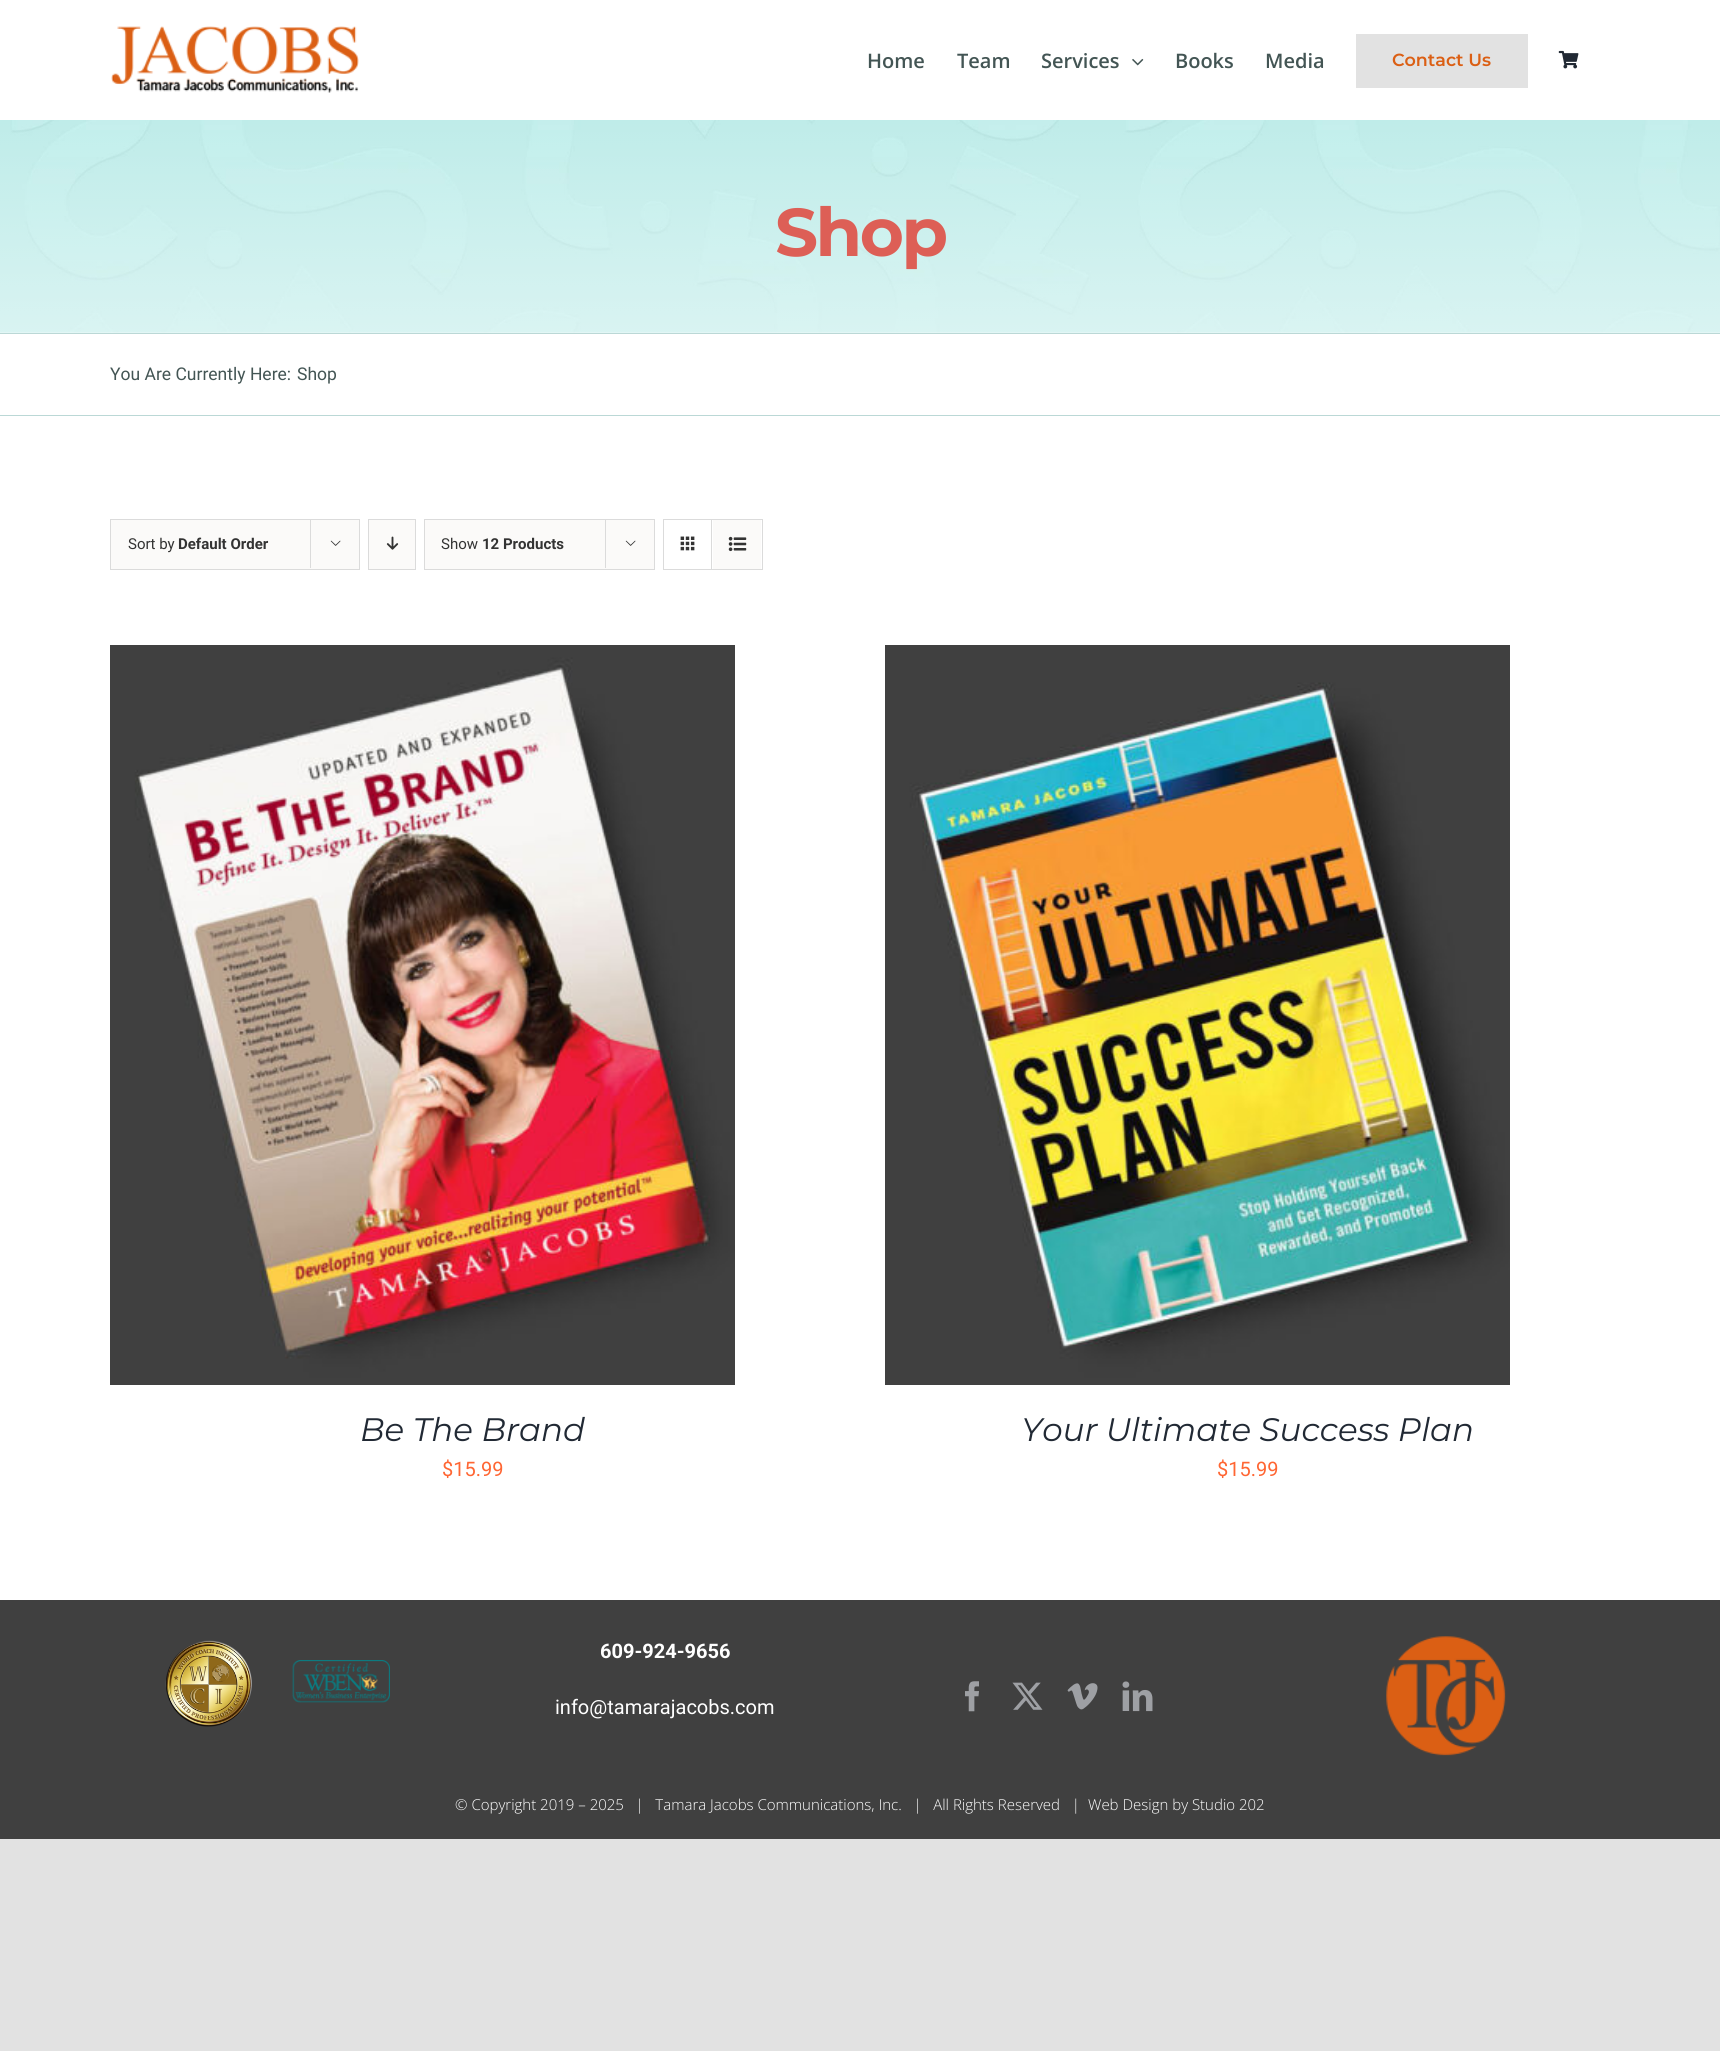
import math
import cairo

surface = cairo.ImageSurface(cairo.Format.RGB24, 1720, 2051)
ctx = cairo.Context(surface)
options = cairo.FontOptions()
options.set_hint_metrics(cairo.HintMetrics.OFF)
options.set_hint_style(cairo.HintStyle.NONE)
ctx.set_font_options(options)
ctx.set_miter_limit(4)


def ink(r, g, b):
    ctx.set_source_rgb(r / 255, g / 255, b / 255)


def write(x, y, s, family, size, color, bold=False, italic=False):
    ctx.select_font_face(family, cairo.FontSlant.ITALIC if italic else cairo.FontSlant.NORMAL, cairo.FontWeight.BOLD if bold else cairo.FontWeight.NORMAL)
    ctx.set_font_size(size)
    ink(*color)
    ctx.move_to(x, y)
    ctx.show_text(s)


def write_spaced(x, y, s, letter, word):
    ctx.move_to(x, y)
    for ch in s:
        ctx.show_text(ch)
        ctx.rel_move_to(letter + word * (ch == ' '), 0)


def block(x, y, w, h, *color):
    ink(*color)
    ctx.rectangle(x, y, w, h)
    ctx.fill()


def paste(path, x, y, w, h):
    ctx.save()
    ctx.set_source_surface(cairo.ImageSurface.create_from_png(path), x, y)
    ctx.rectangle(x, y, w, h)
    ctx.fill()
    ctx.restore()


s1 = dict(family="Open Sans SemiBold", size=20, color=(67, 85, 84))
s2 = dict(family="Montserrat SemiBold", size=17.5, color=(219, 95, 20))
s3 = dict(family="Roboto", size=17.5, color=(67, 85, 84))
s4 = dict(family="Roboto", size=15, color=(51, 51, 51))
s5 = dict(family="Roboto", size=15, color=(51, 51, 51), bold=True)
s6 = dict(family="Montserrat", size=32.5, color=(33, 41, 52), italic=True)
s7 = dict(family="Roboto", size=20, color=(255, 102, 51))
s8 = dict(family="Roboto", size=20, color=(255, 255, 255), bold=True)
s9 = dict(family="Roboto", size=20, color=(255, 255, 255))
s10 = dict(family="Open Sans Light", size=15, color=(255, 255, 255))

ink(226, 226, 226)
ctx.paint()
block(0, 0, 1720, 1600, 255, 255, 255)
paste("pic1.png", 111, 26, 248, 67)
write(867, 68, "Home", **s1)
write(957, 68, "Team", **s1)
write(1041, 68, "Services", **s1)
paste("pic2.png", 1132, 58, 12, 8)
write(1175, 68, "Books", **s1)
write(1265, 68, "Media", **s1)
block(1356, 34, 172, 54, 226, 226, 226)
write(1392, 66, "Contact Us", **s2)
paste("pic3.png", 1558, 50, 21, 19)
paste("pic4.png", 0, 120, 1720, 213)
ctx.select_font_face("Montserrat", cairo.FontSlant.NORMAL, cairo.FontWeight.BOLD)
ctx.set_font_size(67.5)
ink(221, 95, 86)
write_spaced(775, 256, "Shop", -2.5, 0)
block(0, 333, 1720, 1, 187, 216, 214)
block(0, 415, 1720, 1, 187, 216, 214)
write(110, 380, "You Are Currently Here:", **s3)
write(297, 380, "Shop", **s3)
ink(251, 250, 249)
ctx.rectangle(110.5, 519.5, 249, 50)
ctx.fill_preserve()
ink(219, 219, 219)
ctx.set_line_width(1)
ctx.stroke()
write(128, 549, "Sort by", **s4)
write(178, 549, "Default Order", **s5)
block(310, 519, 1, 49, 219, 219, 219)
paste("pic5.png", 330, 540, 11, 6)
ink(251, 250, 249)
ctx.rectangle(368.5, 519.5, 47, 50)
ctx.fill_preserve()
ink(219, 219, 219)
ctx.stroke()
paste("pic6.png", 386, 536, 13, 14)
ink(251, 250, 249)
ctx.rectangle(424.5, 519.5, 230, 50)
ctx.fill_preserve()
ink(219, 219, 219)
ctx.stroke()
write(441, 549, "Show", **s4)
write(482, 549, "12 Products", **s5)
block(605, 519, 1, 49, 219, 219, 219)
paste("pic5.png", 625, 540, 11, 6)
ctx.rectangle(663.5, 519.5, 99, 50)
ctx.stroke()
block(711, 520, 1, 49, 219, 219, 219)
paste("pic7.png", 680, 536, 15, 15)
block(713, 520, 48, 49, 251, 250, 249)
paste("pic8.png", 728, 536, 19, 16)
paste("pic9.png", 110, 645, 625, 740)
write(360, 1441, "Be The Brand", **s6)
write(442, 1476, "$15.99", **s7)
paste("pic10.png", 885, 645, 625, 740)
write(1021, 1441, "Your Ultimate Success Plan", **s6)
write(1217, 1476, "$15.99", **s7)
block(0, 1600, 1720, 239, 64, 64, 64)
paste("pic11.png", 165, 1640, 87, 87)
paste("pic12.png", 292, 1660, 98, 43)
write(600, 1658, "609-924-9656", **s8)
write(555, 1714, "info@tamarajacobs.com", **s9)
paste("pic13.png", 965, 1681, 14, 31)
paste("pic14.png", 1012, 1682, 31, 28)
paste("pic15.png", 1067, 1683, 31, 27)
paste("pic16.png", 1122, 1681, 31, 31)
paste("pic17.png", 1386, 1636, 120, 120)
write(455, 1810, "© Copyright 2019 – 2025   |   Tamara Jacobs Communications, Inc.   |   All Rights Reserved   |", **s10)
write(1088, 1810, "Web Design by Studio 202", **s10)
surface.write_to_png("screenshot.png")
